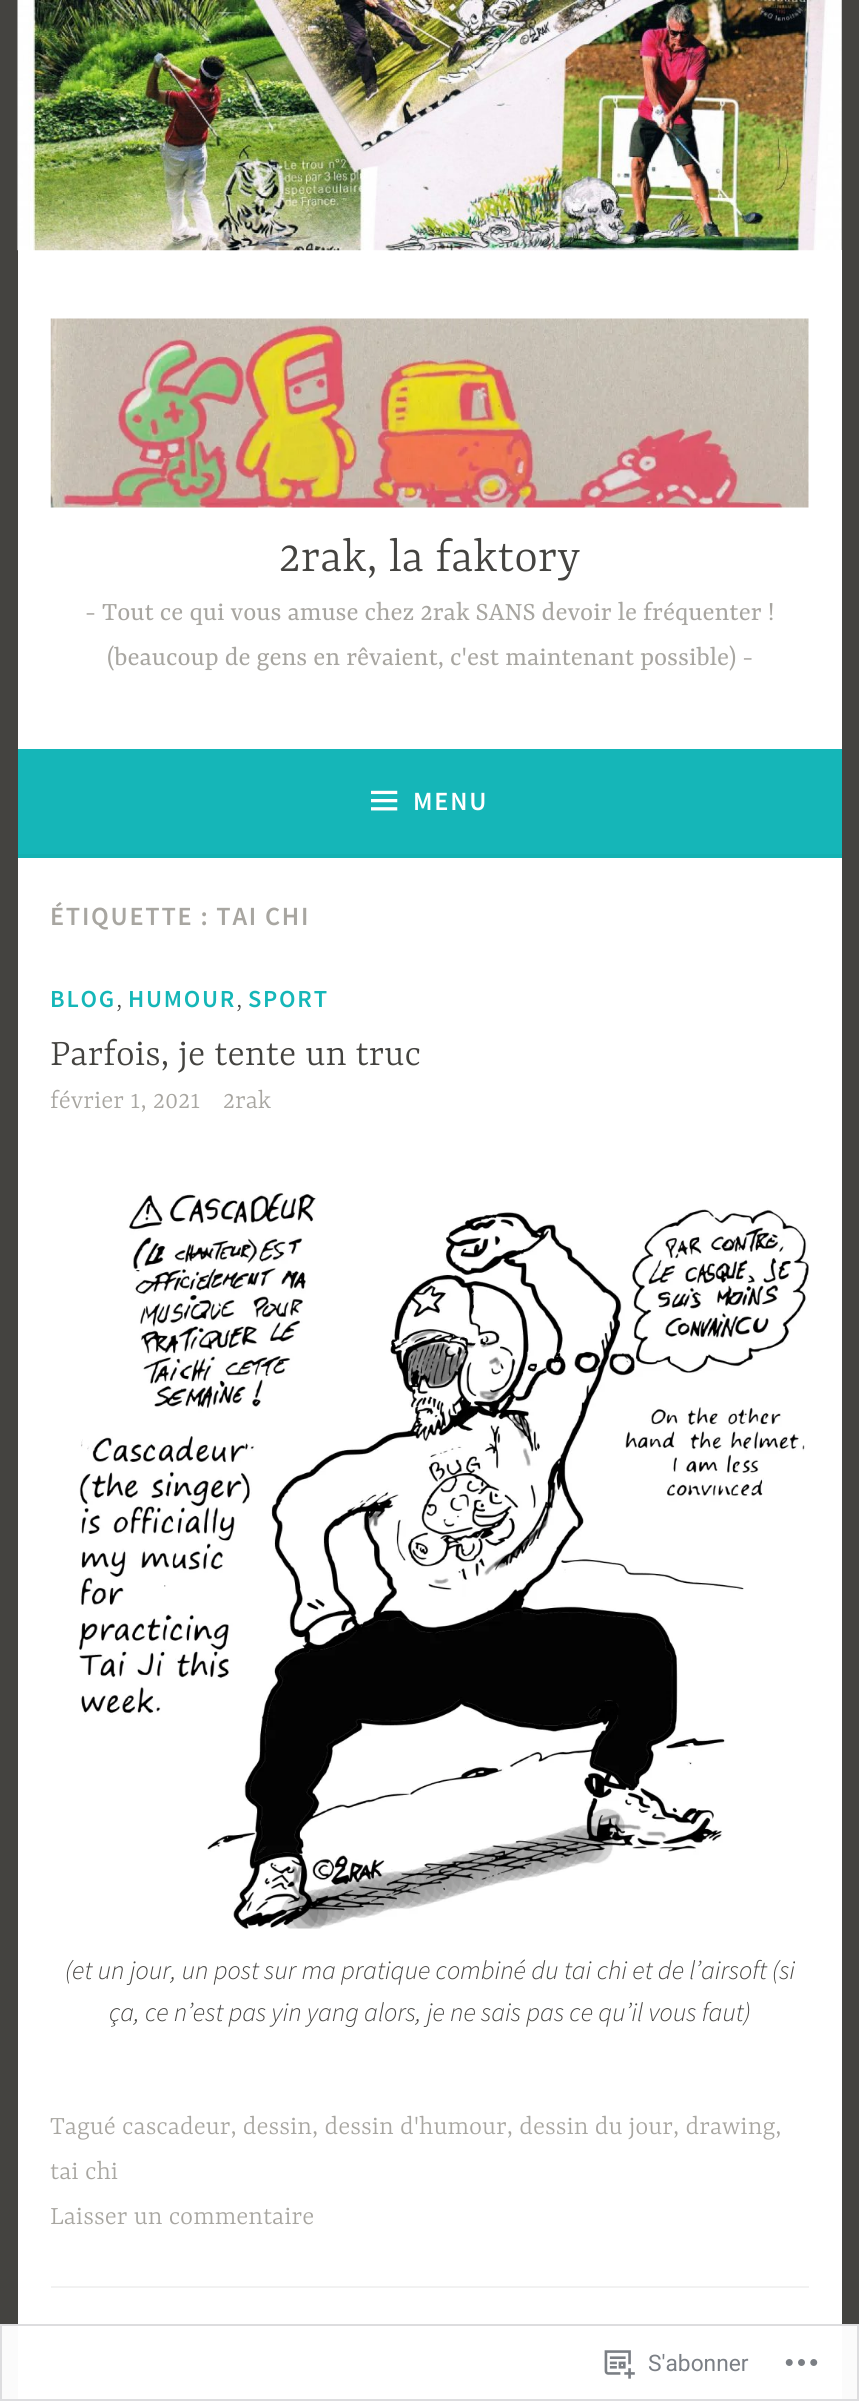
import math
import cairo

surface = cairo.ImageSurface(cairo.Format.RGB24, 859, 2401)
ctx = cairo.Context(surface)
options = cairo.FontOptions()
options.set_hint_metrics(cairo.HintMetrics.OFF)
options.set_hint_style(cairo.HintStyle.NONE)
ctx.set_font_options(options)
ctx.set_miter_limit(4)


def ink(r, g, b):
    ctx.set_source_rgb(r / 255, g / 255, b / 255)


def write(x, y, s, family, size, color, bold=False, italic=False):
    ctx.select_font_face(family, cairo.FontSlant.ITALIC if italic else cairo.FontSlant.NORMAL, cairo.FontWeight.BOLD if bold else cairo.FontWeight.NORMAL)
    ctx.set_font_size(size)
    ink(*color)
    ctx.move_to(x, y)
    ctx.show_text(s)


def write_spaced(x, y, s, letter, word):
    ctx.move_to(x, y)
    for ch in s:
        ctx.show_text(ch)
        ctx.rel_move_to(letter + word * (ch == ' '), 0)


def block(x, y, w, h, *color):
    ink(*color)
    ctx.rectangle(x, y, w, h)
    ctx.fill()


def paste(path, x, y, w, h):
    ctx.save()
    ctx.set_source_surface(cairo.ImageSurface.create_from_png(path), x, y)
    ctx.rectangle(x, y, w, h)
    ctx.fill()
    ctx.restore()


s1 = dict(family="Yrsa Light", size=50.75, color=(68, 67, 64))
s2 = dict(family="Yrsa", size=28, color=(168, 166, 161))
s3 = dict(family="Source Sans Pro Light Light", size=28, color=(68, 67, 64))
s4 = dict(family="Yrsa Light", size=40.25, color=(68, 67, 64))
s5 = dict(family="Yrsa Light", size=28, color=(168, 166, 161))
s6 = dict(family="Source Sans Pro Light Light", size=26.25, color=(68, 67, 64), italic=True)
s7 = dict(family="Roboto", size=22.75, color=(123, 127, 133))

ink(68, 67, 64)
ctx.paint()
block(0, 2324, 859, 77, 251, 251, 251)
block(18, 250, 824, 499, 255, 255, 255)
paste("pic1.png", 17, 0, 825, 251)
paste("pic2.png", 50, 318, 759, 190)
write(279, 571, "2rak, la faktory", **s1)
write(85, 620, "- Tout ce qui vous amuse chez 2rak SANS devoir le fréquenter !", **s2)
write(107, 665, "(beaucoup de gens en rêvaient, c'est maintenant possible) -", **s2)
block(18, 749, 824, 105, 21, 182, 184)
block(18, 854, 824, 4, 20, 177, 178)
paste("pic3.png", 371, 790, 27, 21)
ctx.select_font_face("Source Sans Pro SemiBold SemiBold")
ctx.set_font_size(26.25)
ink(255, 255, 255)
write_spaced(413, 810, "MENU", 1.75, 0)
block(18, 858, 824, 1543, 255, 255, 255)
ink(168, 166, 161)
write_spaced(50, 925, "ÉTIQUETTE : TAI CHI", 1.75, 0)
ctx.set_font_size(24.5)
ink(21, 182, 184)
write_spaced(50, 1007, "BLOG", 1.75, 0)
write(116, 1007, ",", **s3)
ctx.select_font_face("Source Sans Pro SemiBold SemiBold")
ctx.set_font_size(24.5)
ink(21, 182, 184)
write_spaced(128, 1007, "HUMOUR", 1.75, 0)
write(236, 1007, ",", **s3)
ctx.select_font_face("Source Sans Pro SemiBold SemiBold")
ctx.set_font_size(24.5)
ink(21, 182, 184)
write_spaced(248, 1007, "SPORT", 1.75, 0)
write(50, 1065, "Parfois, je tente un truc", **s4)
write(50, 1108, "février 1, 2021", **s5)
write(223, 1108, "2rak", **s5)
paste("pic4.png", 79, 1192, 730, 737)
write(65, 1979, "(et un jour, un post sur ma pratique combiné du tai chi et de l’airsoft (si", **s6)
write(109, 2021, "ça, ce n’est pas yin yang alors, je ne sais pas ce qu’il vous faut)", **s6)
write(50, 2134, "Tagué cascadeur, dessin, dessin d'humour, dessin du jour, drawing,", **s5)
write(50, 2179, "tai chi", **s5)
write(50, 2224, "Laisser un commentaire", **s5)
block(51, 2286, 758, 2, 242, 242, 242)
ctx.rectangle(1, 2325, 857, 75)
ctx.set_source_rgba(0.863, 0.863, 0.871, 0.98)
ctx.stroke()
paste("pic5.png", 604, 2350, 31, 29)
write(648, 2371, "S'abonner", **s7)
paste("pic6.png", 785, 2359, 33, 7)
surface.write_to_png("screenshot.png")
